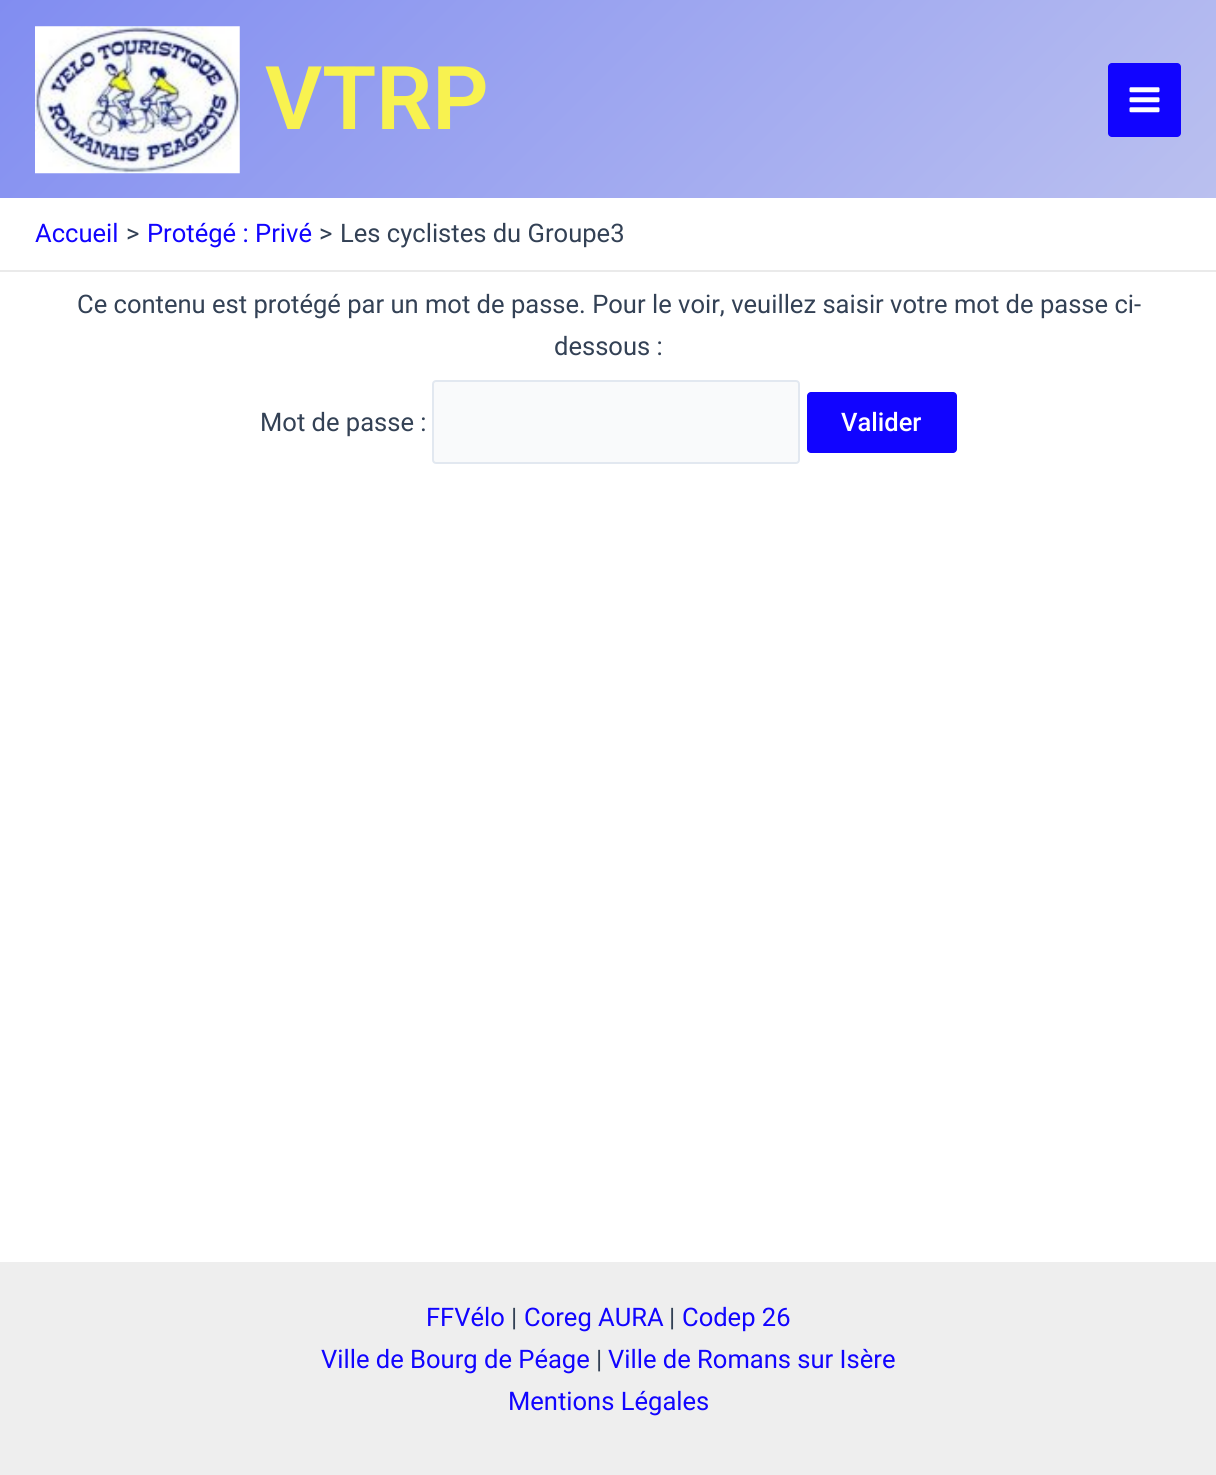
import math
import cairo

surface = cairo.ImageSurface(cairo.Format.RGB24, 1216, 1475)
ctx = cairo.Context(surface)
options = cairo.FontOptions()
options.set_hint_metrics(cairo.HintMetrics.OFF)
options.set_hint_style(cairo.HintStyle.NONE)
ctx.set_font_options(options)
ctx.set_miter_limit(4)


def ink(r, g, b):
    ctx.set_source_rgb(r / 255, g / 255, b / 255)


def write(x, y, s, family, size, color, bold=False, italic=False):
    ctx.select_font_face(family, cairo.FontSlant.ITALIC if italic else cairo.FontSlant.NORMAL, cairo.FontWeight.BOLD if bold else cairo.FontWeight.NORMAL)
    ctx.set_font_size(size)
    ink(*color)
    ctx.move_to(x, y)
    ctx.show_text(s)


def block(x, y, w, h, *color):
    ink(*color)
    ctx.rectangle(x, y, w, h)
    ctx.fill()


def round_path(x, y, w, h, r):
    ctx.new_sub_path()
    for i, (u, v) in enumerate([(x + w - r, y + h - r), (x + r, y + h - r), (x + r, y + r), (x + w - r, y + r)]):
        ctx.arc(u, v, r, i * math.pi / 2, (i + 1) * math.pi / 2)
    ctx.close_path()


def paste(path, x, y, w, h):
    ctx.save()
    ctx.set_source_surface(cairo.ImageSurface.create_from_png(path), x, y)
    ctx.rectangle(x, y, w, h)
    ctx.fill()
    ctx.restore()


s1 = dict(family="Roboto SemiBold", size=88, color=(248, 242, 80))
s2 = dict(family="Roboto", size=25.55, color=(17, 4, 255))
s3 = dict(family="Roboto", size=25.55, color=(51, 65, 85))
s4 = dict(family="Roboto Medium", size=25.55, color=(255, 255, 255))

ink(255, 255, 255)
ctx.paint()
gradient = cairo.LinearGradient(-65, 65, 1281, 1411)
gradient.add_color_stop_rgba(0, 0.506, 0.553, 0.945, 1)
gradient.add_color_stop_rgba(1, 0.933, 0.933, 0.933, 1)
ctx.set_source(gradient)
ctx.rectangle(0, 0, 1216, 198)
ctx.fill()
paste("pic1.png", 35, 26, 205, 148)
write(265, 129, "VTRP", **s1)
ink(17, 4, 255)
round_path(1108, 63, 73, 74, 4)
ctx.fill()
paste("pic2.png", 1129, 87, 31, 26)
block(0, 270, 1216, 2, 234, 234, 234)
write(35, 242, "Accueil", **s2)
write(126, 242, ">", **s3)
write(147, 242, "Protégé : Privé", **s2)
write(319, 242, ">", **s3)
write(340, 242, "Les cyclistes du Groupe3", **s3)
write(77, 313, "Ce contenu est protégé par un mot de passe. Pour le voir, veuillez saisir votre mot de passe ci-", **s3)
write(554, 355, "dessous :", **s3)
write(260, 431, "Mot de passe :", **s3)
ink(249, 250, 251)
round_path(433, 381, 366, 82, 3)
ctx.fill_preserve()
ink(226, 232, 240)
ctx.stroke()
ink(17, 4, 255)
round_path(807, 392, 150, 61, 4)
ctx.fill()
write(841, 431, "Valider", **s4)
block(0, 1262, 1216, 213, 238, 238, 238)
write(426, 1326, "FFVélo", **s2)
write(511, 1326, "|", **s3)
write(524, 1326, "Coreg AURA", **s2)
write(669, 1326, "|", **s3)
write(682, 1326, "Codep 26", **s2)
write(321, 1368, "Ville de Bourg de Péage", **s2)
write(596, 1368, "|", **s3)
write(608, 1368, "Ville de Romans sur Isère", **s2)
write(508, 1410, "Mentions Légales", **s2)
surface.write_to_png("screenshot.png")
